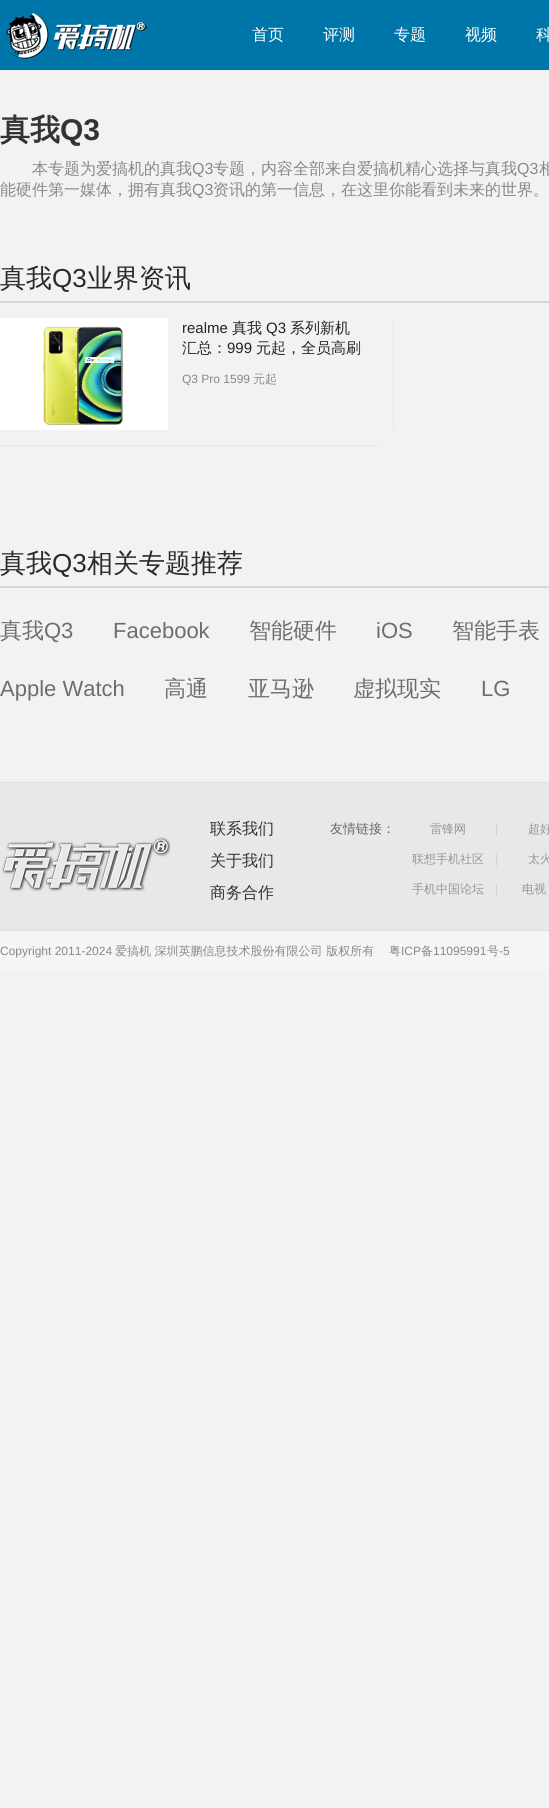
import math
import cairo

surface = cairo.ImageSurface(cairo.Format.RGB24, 549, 1808)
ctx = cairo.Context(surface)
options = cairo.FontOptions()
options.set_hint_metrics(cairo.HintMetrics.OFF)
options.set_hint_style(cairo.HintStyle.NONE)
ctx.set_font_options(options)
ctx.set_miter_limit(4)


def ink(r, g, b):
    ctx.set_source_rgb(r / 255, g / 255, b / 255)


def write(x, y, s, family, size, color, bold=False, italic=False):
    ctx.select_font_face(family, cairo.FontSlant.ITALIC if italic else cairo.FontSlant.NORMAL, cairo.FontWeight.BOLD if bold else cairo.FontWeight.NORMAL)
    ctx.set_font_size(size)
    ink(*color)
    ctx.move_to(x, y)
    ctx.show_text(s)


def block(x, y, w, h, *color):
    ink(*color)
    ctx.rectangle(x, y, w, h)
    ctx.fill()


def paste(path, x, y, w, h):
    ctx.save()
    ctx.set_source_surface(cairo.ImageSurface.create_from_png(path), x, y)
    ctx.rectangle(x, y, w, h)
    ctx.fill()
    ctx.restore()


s1 = dict(family="WenQuanYi Zen Hei Medium", size=16, color=(255, 255, 255))
s2 = dict(family="WenQuanYi Zen Hei", size=30, color=(51, 51, 51), bold=True)
s3 = dict(family="Liberation Sans", size=30, color=(51, 51, 51), bold=True)
s4 = dict(family="WenQuanYi Zen Hei Medium", size=16, color=(136, 136, 136))
s5 = dict(family="Liberation Sans", size=16, color=(136, 136, 136))
s6 = dict(family="WenQuanYi Zen Hei Medium", size=26, color=(41, 41, 41))
s7 = dict(family="Liberation Sans", size=26, color=(41, 41, 41))
s8 = dict(family="Liberation Sans", size=15, color=(39, 35, 34))
s9 = dict(family="WenQuanYi Zen Hei Medium", size=15, color=(39, 35, 34))
s10 = dict(family="Liberation Sans", size=12, color=(136, 136, 136))
s11 = dict(family="WenQuanYi Zen Hei Medium", size=12, color=(136, 136, 136))
s12 = dict(family="WenQuanYi Zen Hei Medium", size=22, color=(109, 109, 109))
s13 = dict(family="Liberation Sans", size=22, color=(109, 109, 109))
s14 = dict(family="WenQuanYi Zen Hei Medium", size=16, color=(51, 51, 51))
s15 = dict(family="WenQuanYi Zen Hei Medium", size=13, color=(102, 102, 102))
s16 = dict(family="WenQuanYi Zen Hei Medium", size=12, color=(150, 150, 150))
s17 = dict(family="Liberation Sans", size=12, color=(211, 206, 211))

ink(242, 242, 242)
ctx.paint()
block(0, 0, 549, 70, 0, 117, 170)
paste("pic1.png", 0, 11, 147, 48)
write(252, 40, "首页", **s1)
write(323, 40, "评测", **s1)
write(394, 40, "专题", **s1)
write(465, 40, "视频", **s1)
write(536, 40, "科", **s1)
write(0, 140, "真我", **s2)
write(60, 140, "Q3", **s3)
write(32, 174, "本专题为爱搞机的真我", **s4)
write(192, 174, "Q3", **s5)
write(213, 174, "专题，内容全部来自爱搞机精心选择与真我", **s4)
write(517, 174, "Q3", **s5)
write(539, 174, "相", **s4)
write(0, 195, "能硬件第一媒体，拥有真我", **s4)
write(192, 195, "Q3", **s5)
write(213, 195, "资讯的第一信息，在这里你能看到未来的世界。", **s4)
block(0, 301, 549, 2, 214, 214, 214)
write(0, 287, "真我", **s6)
write(52, 287, "Q3", **s7)
write(87, 287, "业界资讯", **s6)
block(0, 445, 380, 1, 232, 232, 232)
paste("pic2.png", 0, 318, 168, 112)
write(182, 333, "realme", **s8)
write(232, 333, "真我", **s9)
write(266, 333, "Q3", **s8)
write(290, 333, "系列新机", **s9)
write(182, 353, "汇总：", **s9)
write(227, 353, "999", **s8)
write(256, 353, "元起，全员高刷", **s9)
write(182, 383, "Q3 Pro 1599", **s10)
write(253, 383, "元起", **s11)
block(393, 318, 1, 112, 232, 232, 232)
block(0, 586, 549, 2, 214, 214, 214)
write(0, 572, "真我", **s6)
write(52, 572, "Q3", **s7)
write(87, 572, "相关专题推荐", **s6)
write(0, 638, "真我", **s12)
write(44, 638, "Q3", **s13)
write(113, 638, "Facebook", **s13)
write(249, 638, "智能硬件", **s12)
write(376, 638, "iOS", **s13)
write(452, 638, "智能手表", **s12)
write(0, 696, "Apple Watch", **s13)
write(164, 696, "高通", **s12)
write(248, 696, "亚马逊", **s12)
write(353, 696, "虚拟现实", **s12)
write(481, 696, "LG", **s13)
block(0, 783, 549, 147, 232, 232, 232)
block(0, 782, 549, 1, 224, 224, 224)
paste("pic3.png", 2, 837, 168, 55)
write(210, 834, "联系我们", **s14)
write(210, 866, "关于我们", **s14)
write(210, 898, "商务合作", **s14)
write(330, 833, "友情链接：", **s15)
write(430, 833, "雷锋网", **s16)
write(495, 833, "|", **s17)
write(528, 833, "超好", **s16)
write(412, 863, "联想手机社区", **s16)
write(495, 863, "|", **s17)
write(528, 863, "太火", **s16)
write(412, 893, "手机中国论坛", **s16)
write(495, 893, "|", **s17)
write(522, 893, "电视", **s16)
block(0, 931, 549, 40, 245, 245, 245)
block(0, 930, 549, 1, 224, 224, 224)
write(0, 955, "Copyright 2011-2024", **s10)
write(115, 955, "爱搞机 深圳英鹏信息技术股份有限公司 版权所有", **s11)
write(389, 955, "粤", **s11)
write(401, 955, "ICP", **s10)
write(421, 955, "备", **s11)
write(433, 955, "11095991", **s10)
write(487, 955, "号", **s11)
write(499, 955, "-5", **s10)
surface.write_to_png("screenshot.png")
